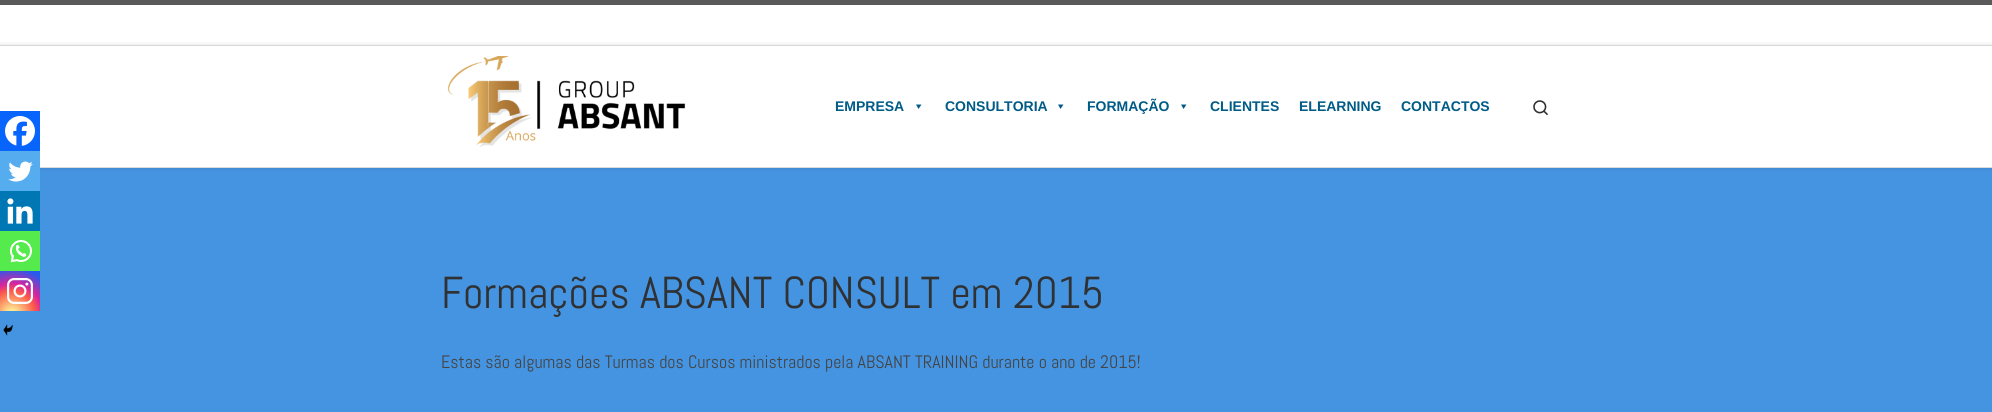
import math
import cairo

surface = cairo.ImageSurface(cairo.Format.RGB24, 1992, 412)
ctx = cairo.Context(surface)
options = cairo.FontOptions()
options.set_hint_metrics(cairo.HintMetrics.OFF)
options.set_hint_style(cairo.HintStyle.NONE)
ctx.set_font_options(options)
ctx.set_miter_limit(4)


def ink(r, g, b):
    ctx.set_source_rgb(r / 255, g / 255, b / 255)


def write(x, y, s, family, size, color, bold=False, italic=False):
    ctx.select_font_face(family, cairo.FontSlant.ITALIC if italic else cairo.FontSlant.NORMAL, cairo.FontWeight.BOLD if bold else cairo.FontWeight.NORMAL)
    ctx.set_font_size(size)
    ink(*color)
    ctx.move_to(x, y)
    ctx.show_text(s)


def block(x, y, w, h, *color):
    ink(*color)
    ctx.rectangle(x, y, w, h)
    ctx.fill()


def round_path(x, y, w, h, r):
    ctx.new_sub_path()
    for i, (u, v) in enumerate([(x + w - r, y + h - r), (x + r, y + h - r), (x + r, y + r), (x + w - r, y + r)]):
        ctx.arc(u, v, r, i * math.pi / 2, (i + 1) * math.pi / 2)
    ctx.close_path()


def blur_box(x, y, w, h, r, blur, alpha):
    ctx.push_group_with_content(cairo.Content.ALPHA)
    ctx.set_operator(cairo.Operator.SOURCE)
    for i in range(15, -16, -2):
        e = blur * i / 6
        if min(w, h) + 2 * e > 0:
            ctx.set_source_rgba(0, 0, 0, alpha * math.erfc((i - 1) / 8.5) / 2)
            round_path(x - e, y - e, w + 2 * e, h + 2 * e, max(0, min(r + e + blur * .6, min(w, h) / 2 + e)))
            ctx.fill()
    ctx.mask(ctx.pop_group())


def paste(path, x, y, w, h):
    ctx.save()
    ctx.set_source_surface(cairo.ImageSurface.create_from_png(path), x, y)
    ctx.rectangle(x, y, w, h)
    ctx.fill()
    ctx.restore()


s1 = dict(family="Liberation Sans", size=14, color=(0, 91, 135), bold=True)
s2 = dict(family="Abel", size=44.75, color=(48, 49, 51))
s3 = dict(family="Abel", size=18, color=(68, 68, 68))

ink(255, 255, 255)
ctx.paint()
block(0, 0, 1992, 5, 90, 90, 90)
block(0, 45, 1992, 1, 236, 236, 236)
block(40, 167, 1952, 1, 239, 239, 239)
block(0, 168, 1992, 244, 69, 148, 225)
ctx.save()
ctx.set_fill_rule(cairo.FillRule.EVEN_ODD)
ctx.new_path()
ctx.move_to(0, 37)
ctx.line_to(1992, 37)
ctx.line_to(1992, 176)
ctx.line_to(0, 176)
ctx.close_path()
ctx.move_to(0, 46)
ctx.line_to(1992, 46)
ctx.line_to(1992, 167)
ctx.line_to(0, 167)
ctx.close_path()
ctx.clip()
ink(0, 0, 0)
blur_box(0, 46, 1992, 121, 0, 2.5, 0.2)
ctx.restore()
paste("pic1.png", 447, 56, 239, 91)
write(835, 111, "EMPRESA", **s1)
ctx.new_path()
ctx.move_to(921.5, 104.5)
ctx.line_to(918.5, 109)
ctx.line_to(916, 104.5)
ctx.close_path()
ctx.fill()
write(945, 111, "CONSULTORIA", **s1)
ctx.new_path()
ctx.move_to(1063.5, 104.5)
ctx.line_to(1060.5, 109)
ctx.line_to(1058, 104.5)
ctx.close_path()
ctx.fill()
write(1087, 111, "FORMAÇÃO", **s1)
ctx.new_path()
ctx.move_to(1186.5, 104.5)
ctx.line_to(1183.5, 109)
ctx.line_to(1181, 104.5)
ctx.close_path()
ctx.fill()
write(1210, 111, "CLIENTES", **s1)
write(1299, 111, "ELEARNING", **s1)
write(1401, 111, "CONTACTOS", **s1)
paste("pic2.png", 1533, 100, 15, 16)
block(0, 111, 40, 40, 7, 101, 254)
paste("pic3.png", 5, 116, 30, 30)
block(0, 151, 40, 40, 85, 172, 238)
paste("pic4.png", 8, 161, 25, 21)
block(0, 191, 40, 40, 0, 119, 181)
paste("pic5.png", 7, 198, 26, 26)
block(0, 231, 40, 40, 85, 235, 76)
paste("pic6.png", 10, 240, 22, 23)
gradient = cairo.RadialGradient(12, 314, 0, 12, 314, 51)
gradient.add_color_stop_rgba(0, 0.992, 0.957, 0.592, 1)
gradient.add_color_stop_rgba(0.05, 0.992, 0.957, 0.592, 1)
gradient.add_color_stop_rgba(0.45, 0.992, 0.349, 0.286, 1)
gradient.add_color_stop_rgba(0.6, 0.839, 0.141, 0.624, 1)
gradient.add_color_stop_rgba(0.9, 0.157, 0.353, 0.922, 1)
ctx.set_source(gradient)
ctx.rectangle(0, 271, 40, 40)
ctx.fill()
paste("pic7.png", 7, 278, 26, 26)
paste("pic8.png", 3, 324, 10, 12)
write(441, 308, "Formações ABSANT CONSULT em 2015", **s2)
write(441, 368, "Estas são algumas das Turmas dos Cursos ministrados pela ABSANT TRAINING durante o ano de 2015!", **s3)
surface.write_to_png("screenshot.png")
